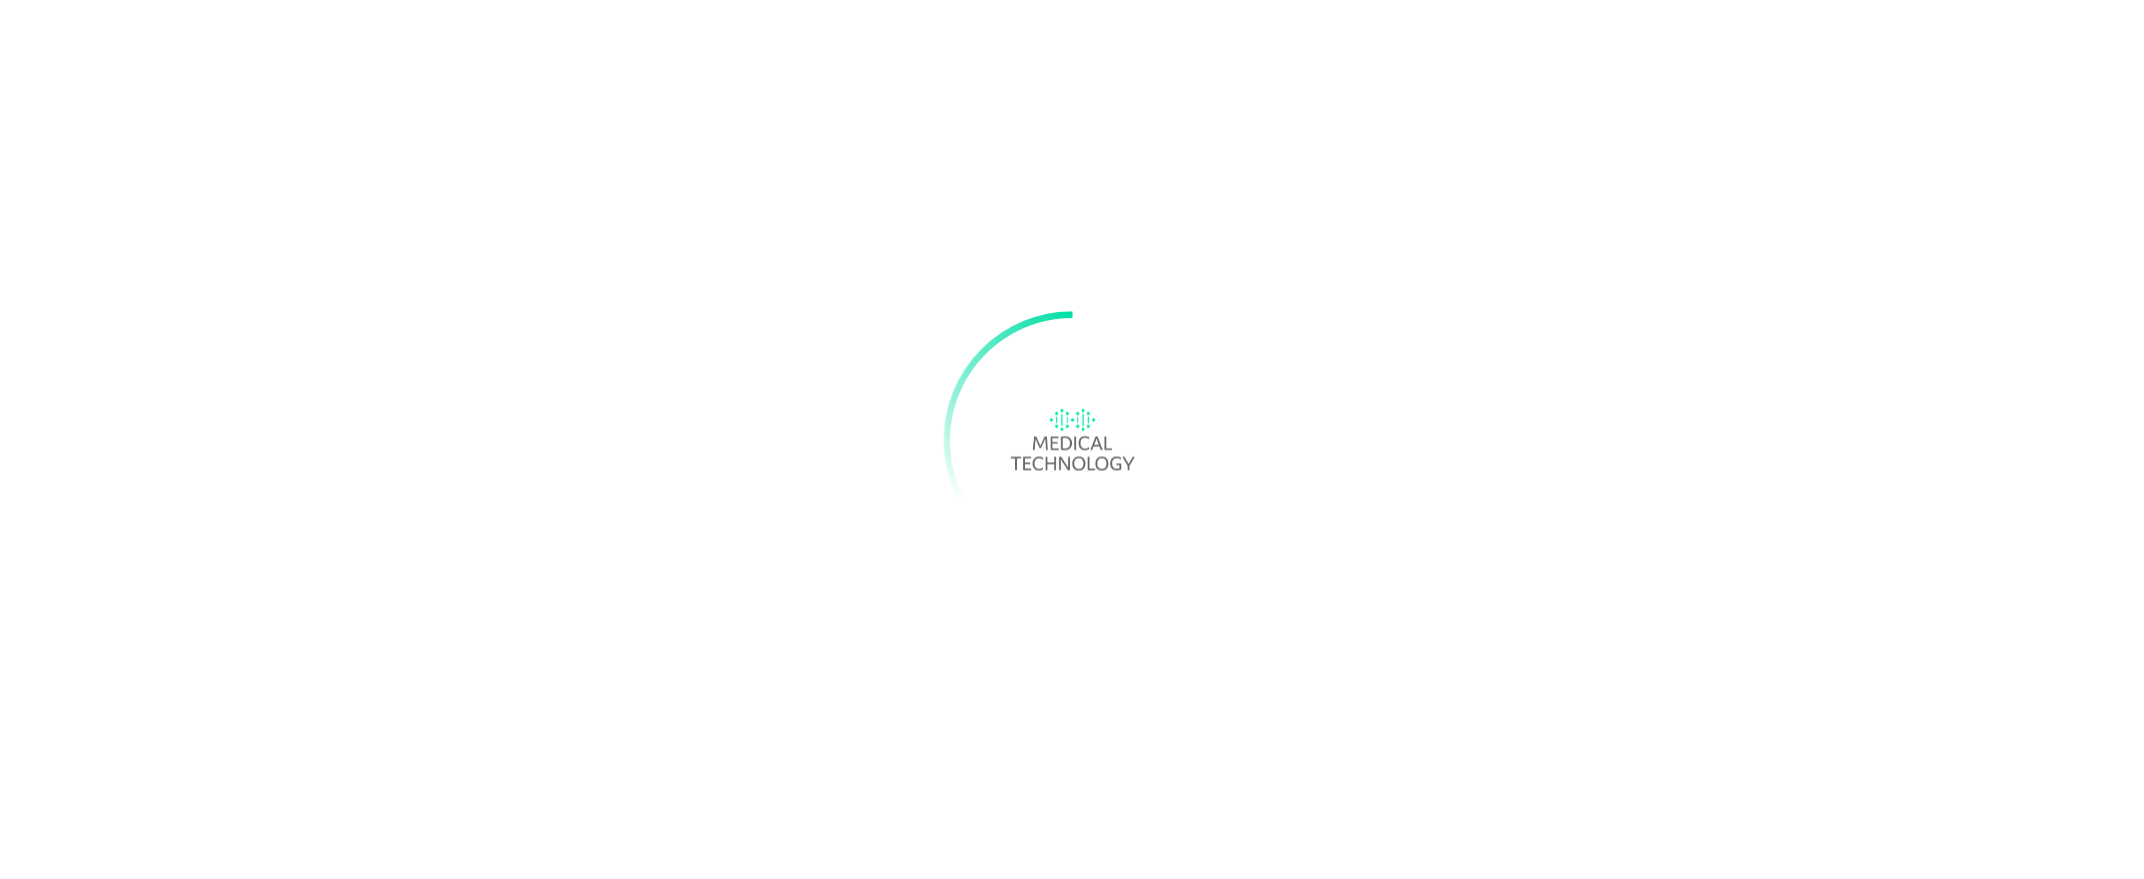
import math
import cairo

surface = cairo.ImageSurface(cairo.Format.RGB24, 2144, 879)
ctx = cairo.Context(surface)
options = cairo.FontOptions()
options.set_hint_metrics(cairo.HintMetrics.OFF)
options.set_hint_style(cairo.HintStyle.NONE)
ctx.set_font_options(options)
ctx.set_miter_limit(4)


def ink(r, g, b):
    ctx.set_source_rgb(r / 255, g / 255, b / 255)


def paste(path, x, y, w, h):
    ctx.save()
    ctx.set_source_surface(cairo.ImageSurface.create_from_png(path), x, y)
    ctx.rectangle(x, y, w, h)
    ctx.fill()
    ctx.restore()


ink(255, 255, 255)
ctx.paint()
paste("pic1.png", 943, 311, 130, 187)
ink(255, 255, 255)
ctx.arc(1072.5, 440.5, 122.5, 0, 2 * math.pi)
ctx.fill()
paste("pic2.png", 1010, 408, 125, 63)
surface.write_to_png("screenshot.png")
